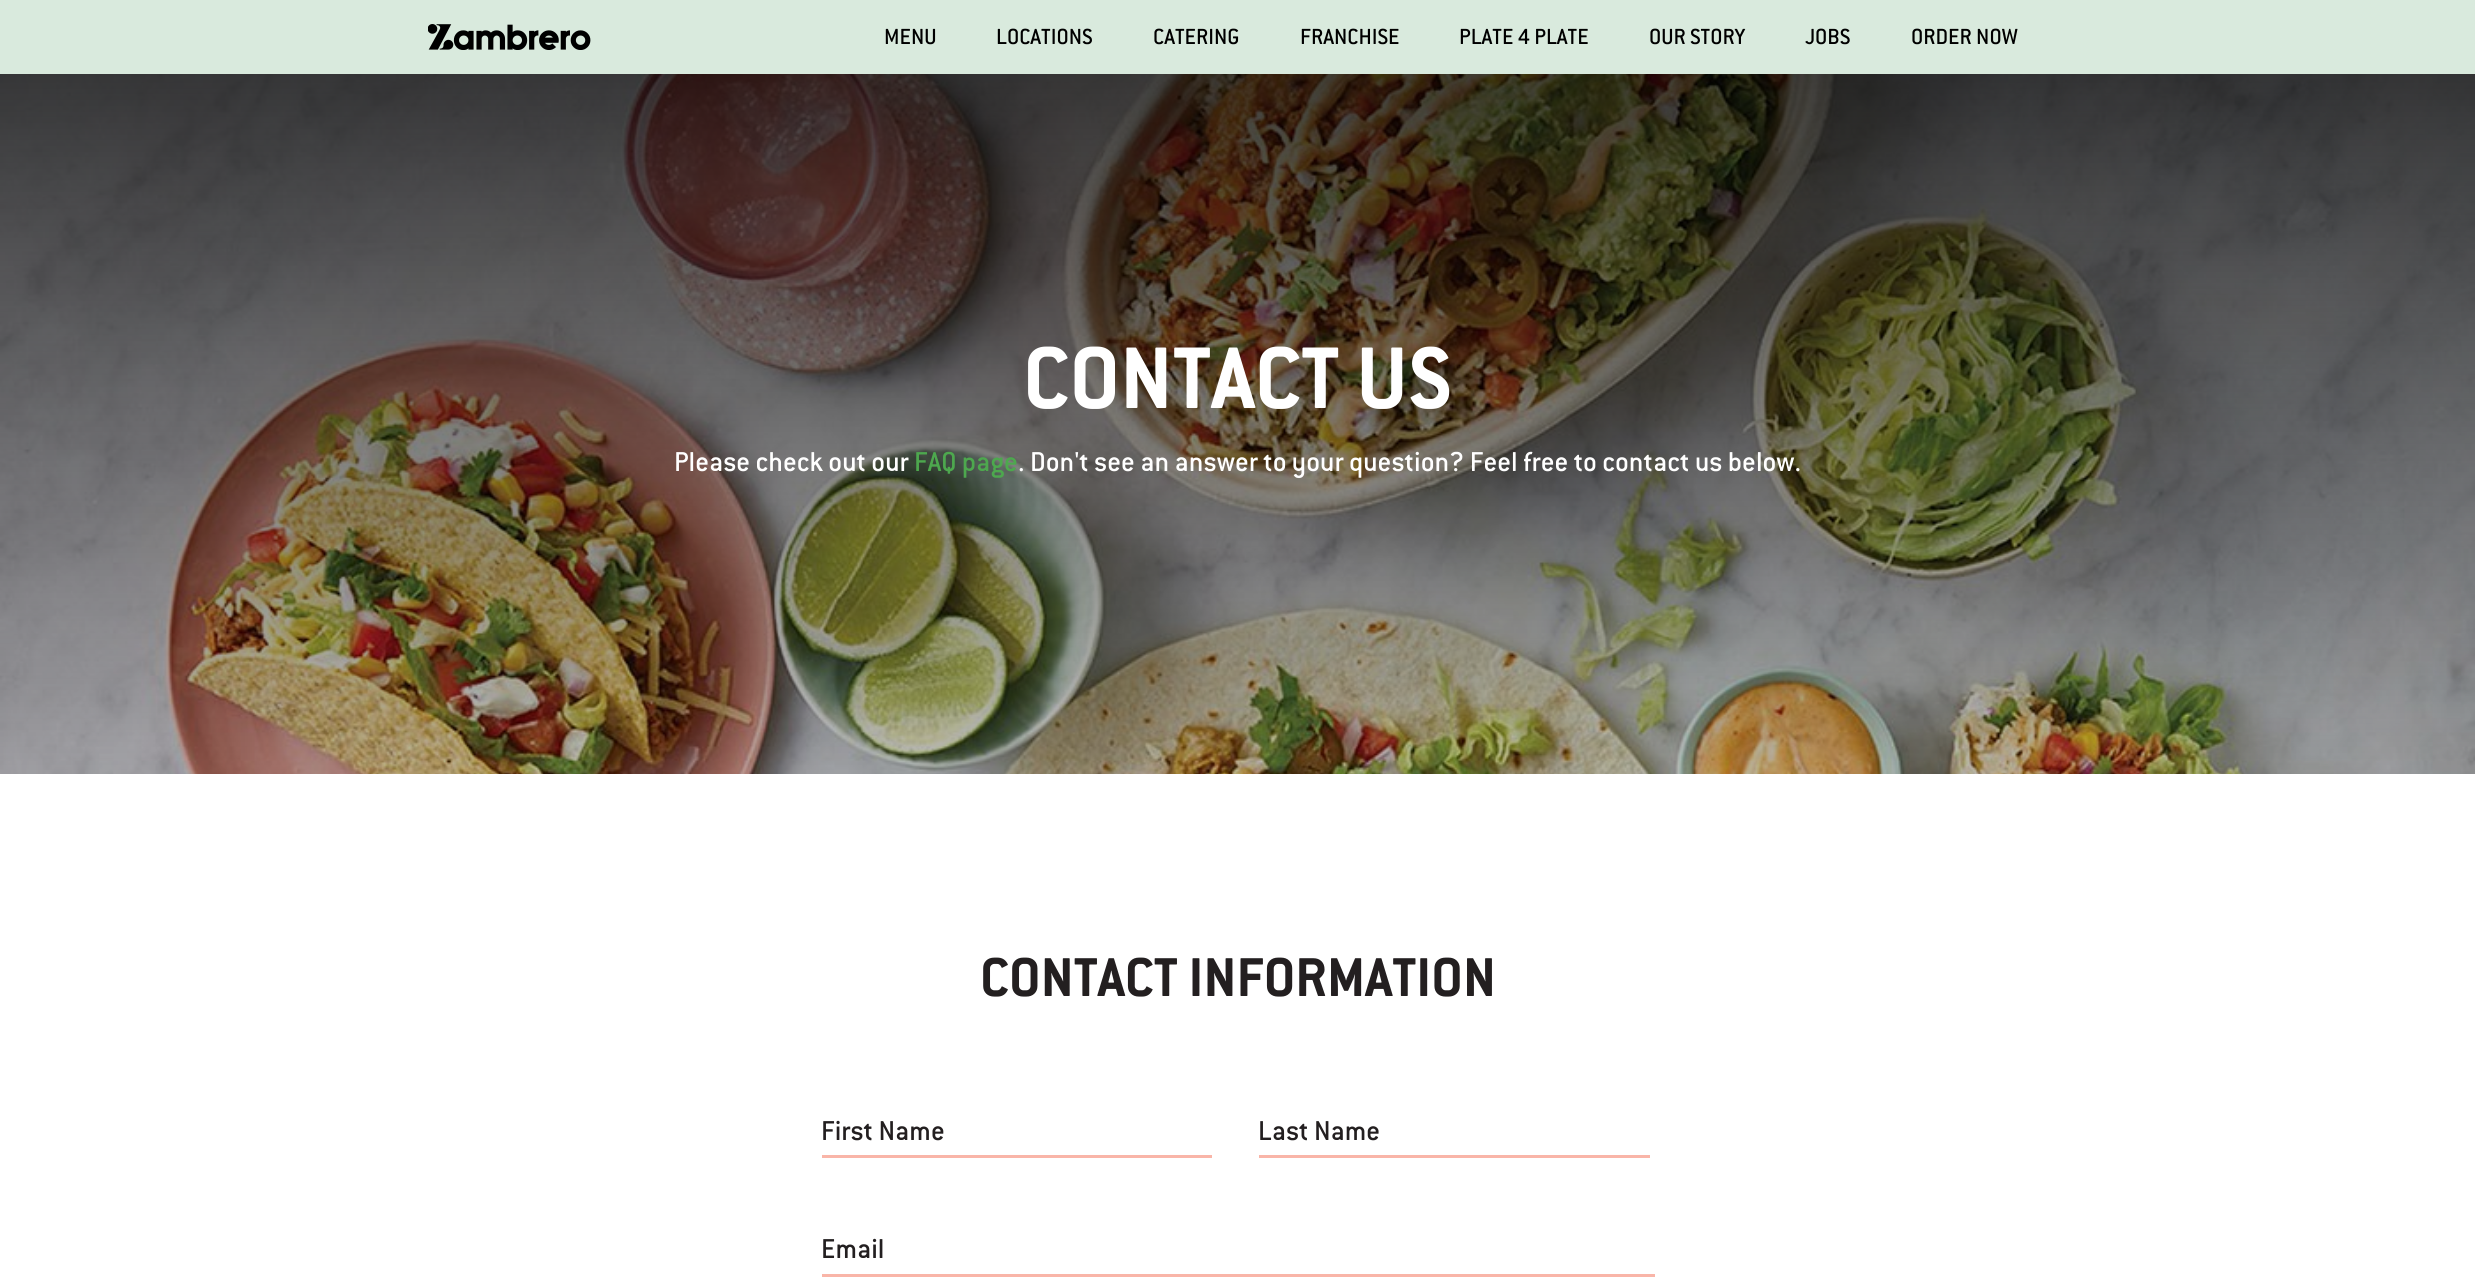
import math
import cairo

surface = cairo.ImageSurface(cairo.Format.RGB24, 2475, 1282)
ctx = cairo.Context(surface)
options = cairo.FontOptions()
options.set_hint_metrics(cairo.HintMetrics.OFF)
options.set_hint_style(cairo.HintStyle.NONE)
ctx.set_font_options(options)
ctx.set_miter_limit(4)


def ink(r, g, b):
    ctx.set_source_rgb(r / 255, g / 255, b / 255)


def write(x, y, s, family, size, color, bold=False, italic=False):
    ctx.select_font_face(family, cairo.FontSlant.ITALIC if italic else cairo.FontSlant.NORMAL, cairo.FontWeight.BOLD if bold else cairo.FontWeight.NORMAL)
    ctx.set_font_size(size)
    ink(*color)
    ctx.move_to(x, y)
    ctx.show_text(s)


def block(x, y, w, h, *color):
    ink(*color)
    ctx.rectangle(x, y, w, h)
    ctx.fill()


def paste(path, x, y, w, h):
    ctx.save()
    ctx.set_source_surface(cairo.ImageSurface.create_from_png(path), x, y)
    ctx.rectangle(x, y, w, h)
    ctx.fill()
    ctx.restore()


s1 = dict(family="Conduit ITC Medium", size=24, color=(0, 0, 0))
s2 = dict(family="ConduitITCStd", size=96, color=(255, 255, 255), bold=True)
s3 = dict(family="Conduit ITC Medium", size=30, color=(255, 255, 255))
s4 = dict(family="Conduit ITC Medium", size=30, color=(77, 168, 78))
s5 = dict(family="ConduitITCStd", size=60, color=(35, 31, 32), bold=True)
s6 = dict(family="Conduit ITC Medium", size=30, color=(35, 31, 32))

ink(255, 255, 255)
ctx.paint()
block(0, 0, 2475, 74, 217, 234, 221)
paste("pic1.png", 428, 24, 163, 26)
write(884, 44, "MENU", **s1)
write(996, 44, "LOCATIONS", **s1)
write(1153, 44, "CATERING", **s1)
write(1300, 44, "FRANCHISE", **s1)
write(1459, 44, "PLATE 4 PLATE", **s1)
write(1649, 44, "OUR STORY", **s1)
write(1805, 44, "JOBS", **s1)
write(1911, 44, "ORDER NOW", **s1)
paste("pic2.png", 0, 74, 2475, 700)
write(1023, 408, "CONTACT US", **s2)
write(674, 471, "Please check out our", **s3)
write(914, 471, "FAQ page", **s4)
write(1018, 471, ". Don't see an answer to your question? Feel free to contact us below.", **s3)
write(980, 996, "CONTACT INFORMATION", **s5)
write(821, 1140, "First Name", **s6)
block(822, 1155, 390, 3, 249, 181, 168)
write(1258, 1140, "Last Name", **s6)
block(1259, 1155, 391, 3, 249, 181, 168)
write(821, 1258, "Email", **s6)
block(822, 1274, 833, 3, 249, 181, 168)
surface.write_to_png("screenshot.png")
